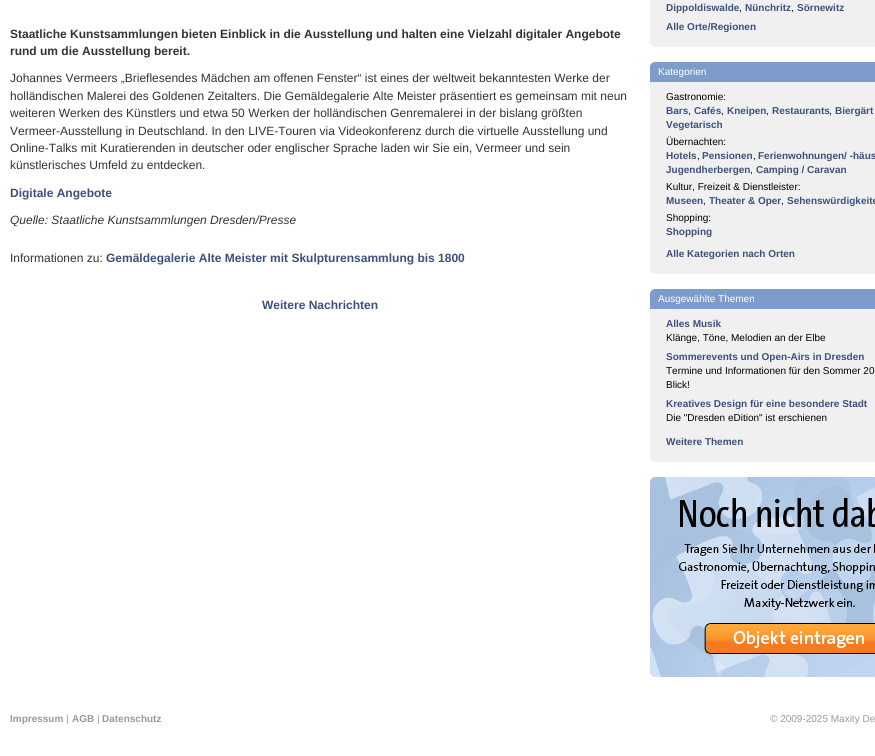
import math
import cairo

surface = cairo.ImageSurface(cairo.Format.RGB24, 875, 756)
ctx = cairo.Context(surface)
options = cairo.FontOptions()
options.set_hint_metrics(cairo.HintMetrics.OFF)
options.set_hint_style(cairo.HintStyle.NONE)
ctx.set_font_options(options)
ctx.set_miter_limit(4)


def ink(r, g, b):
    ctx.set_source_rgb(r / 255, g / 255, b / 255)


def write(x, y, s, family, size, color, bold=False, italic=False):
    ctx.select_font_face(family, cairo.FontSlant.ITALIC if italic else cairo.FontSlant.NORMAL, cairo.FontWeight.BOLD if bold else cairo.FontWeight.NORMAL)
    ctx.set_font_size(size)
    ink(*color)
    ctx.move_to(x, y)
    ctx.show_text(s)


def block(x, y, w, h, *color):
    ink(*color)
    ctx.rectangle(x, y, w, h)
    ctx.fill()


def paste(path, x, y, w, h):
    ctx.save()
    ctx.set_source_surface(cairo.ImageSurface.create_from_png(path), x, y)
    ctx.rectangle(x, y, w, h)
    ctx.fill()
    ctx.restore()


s1 = dict(family="Liberation Sans", size=12, color=(51, 51, 51), bold=True)
s2 = dict(family="Liberation Sans", size=12, color=(51, 51, 51))
s3 = dict(family="Liberation Sans", size=12, color=(60, 81, 123), bold=True)
s4 = dict(family="Liberation Sans", size=12, color=(51, 51, 51), italic=True)
s5 = dict(family="Liberation Sans", size=10, color=(60, 81, 123), bold=True)
s6 = dict(family="Liberation Sans", size=10, color=(0, 0, 0))
s7 = dict(family="Liberation Sans", size=10, color=(255, 255, 255))
s8 = dict(family="Liberation Sans", size=10, color=(153, 153, 153), bold=True)
s9 = dict(family="Liberation Sans", size=10, color=(153, 153, 153))

ink(255, 255, 255)
ctx.paint()
write(10, 38, "Staatliche Kunstsammlungen bieten Einblick in die Ausstellung und halten eine Vielzahl digitaler Angebote", **s1)
write(10, 55, "rund um die Ausstellung bereit.", **s1)
write(10, 82, "Johannes Vermeers „Brieflesendes Mädchen am offenen Fenster“ ist eines der weltweit bekanntesten Werke der", **s2)
write(10, 100, "holländischen Malerei des Goldenen Zeitalters. Die Gemäldegalerie Alte Meister präsentiert es gemeinsam mit neun", **s2)
write(10, 117, "weiteren Werken des Künstlers und etwa 50 Werken der holländischen Genremalerei in der bislang größten", **s2)
write(10, 135, "Vermeer-Ausstellung in Deutschland. In den LIVE-Touren via Videokonferenz durch die virtuelle Ausstellung und", **s2)
write(10, 152, "Online-Talks mit Kuratierenden in deutscher oder englischer Sprache laden wir Sie ein, Vermeer und sein", **s2)
write(10, 169, "künstlerisches Umfeld zu entdecken.", **s2)
write(10, 197, "Digitale Angebote", **s3)
write(10, 224, "Quelle: Staatliche Kunstsammlungen Dresden/Presse", **s4)
write(10, 262, "Informationen zu:", **s2)
write(106, 262, "Gemäldegalerie Alte Meister mit Skulpturensammlung bis 1800", **s3)
write(262, 309, "Weitere Nachrichten", **s3)
block(650, 0, 225, 47, 240, 240, 240)
write(666, 11, "Dippoldiswalde", **s5)
write(739, 11, ",", **s6)
write(745, 11, "Nünchritz", **s5)
write(791, 11, ",", **s6)
write(797, 11, "Sörnewitz", **s5)
write(666, 30, "Alle Orte/Regionen", **s5)
paste("pic1.png", 650, 43, 4, 4)
block(650, 62, 225, 20, 125, 156, 203)
paste("pic2.png", 650, 62, 5, 5)
write(658, 75, "Kategorien", **s7)
block(650, 82, 225, 192, 240, 240, 240)
write(666, 100, "Gastronomie:", **s6)
write(666, 114, "Bars", **s5)
write(688, 114, ",", **s6)
write(694, 114, "Cafés", **s5)
write(721, 114, ",", **s6)
write(727, 114, "Kneipen", **s5)
write(766, 114, ",", **s6)
write(772, 114, "Restaurants", **s5)
write(829, 114, ",", **s6)
write(835, 114, "Biergärt", **s5)
write(666, 128, "Vegetarisch", **s5)
write(666, 145, "Übernachten:", **s6)
write(666, 159, "Hotels", **s5)
write(697, 159, ",", **s6)
write(702, 159, "Pensionen", **s5)
write(753, 159, ",", **s6)
write(758, 159, "Ferienwohnungen/ -häus", **s5)
write(666, 173, "Jugendherbergen", **s5)
write(750, 173, ",", **s6)
write(756, 173, "Camping / Caravan", **s5)
write(666, 190, "Kultur, Freizeit & Dienstleister:", **s6)
write(666, 204, "Museen", **s5)
write(703, 204, ",", **s6)
write(709, 204, "Theater & Oper", **s5)
write(781, 204, ",", **s6)
write(787, 204, "Sehenswürdigkeite", **s5)
write(666, 221, "Shopping:", **s6)
write(666, 235, "Shopping", **s5)
write(666, 257, "Alle Kategorien nach Orten", **s5)
paste("pic1.png", 650, 270, 4, 4)
block(650, 289, 225, 20, 125, 156, 203)
paste("pic2.png", 650, 289, 5, 5)
write(658, 302, "Ausgewählte Themen", **s7)
block(650, 309, 225, 153, 240, 240, 240)
write(666, 327, "Alles Musik", **s5)
write(666, 341, "Klänge, Töne, Melodien an der Elbe", **s6)
write(666, 360, "Sommerevents und Open-Airs in Dresden", **s5)
write(666, 374, "Termine und Informationen für den Sommer 20", **s6)
write(666, 388, "Blick!", **s6)
write(666, 407, "Kreatives Design für eine besondere Stadt", **s5)
write(666, 421, "Die \"Dresden eDition\" ist erschienen", **s6)
write(666, 445, "Weitere Themen", **s5)
paste("pic1.png", 650, 458, 4, 4)
paste("pic3.png", 650, 477, 225, 200)
write(10, 722, "Impressum", **s8)
write(66, 722, "|", **s9)
write(72, 722, "AGB", **s8)
write(97, 722, "|", **s9)
write(102, 722, "Datenschutz", **s8)
write(770, 722, "© 2009-2025 Maxity De", **s9)
surface.write_to_png("screenshot.png")
